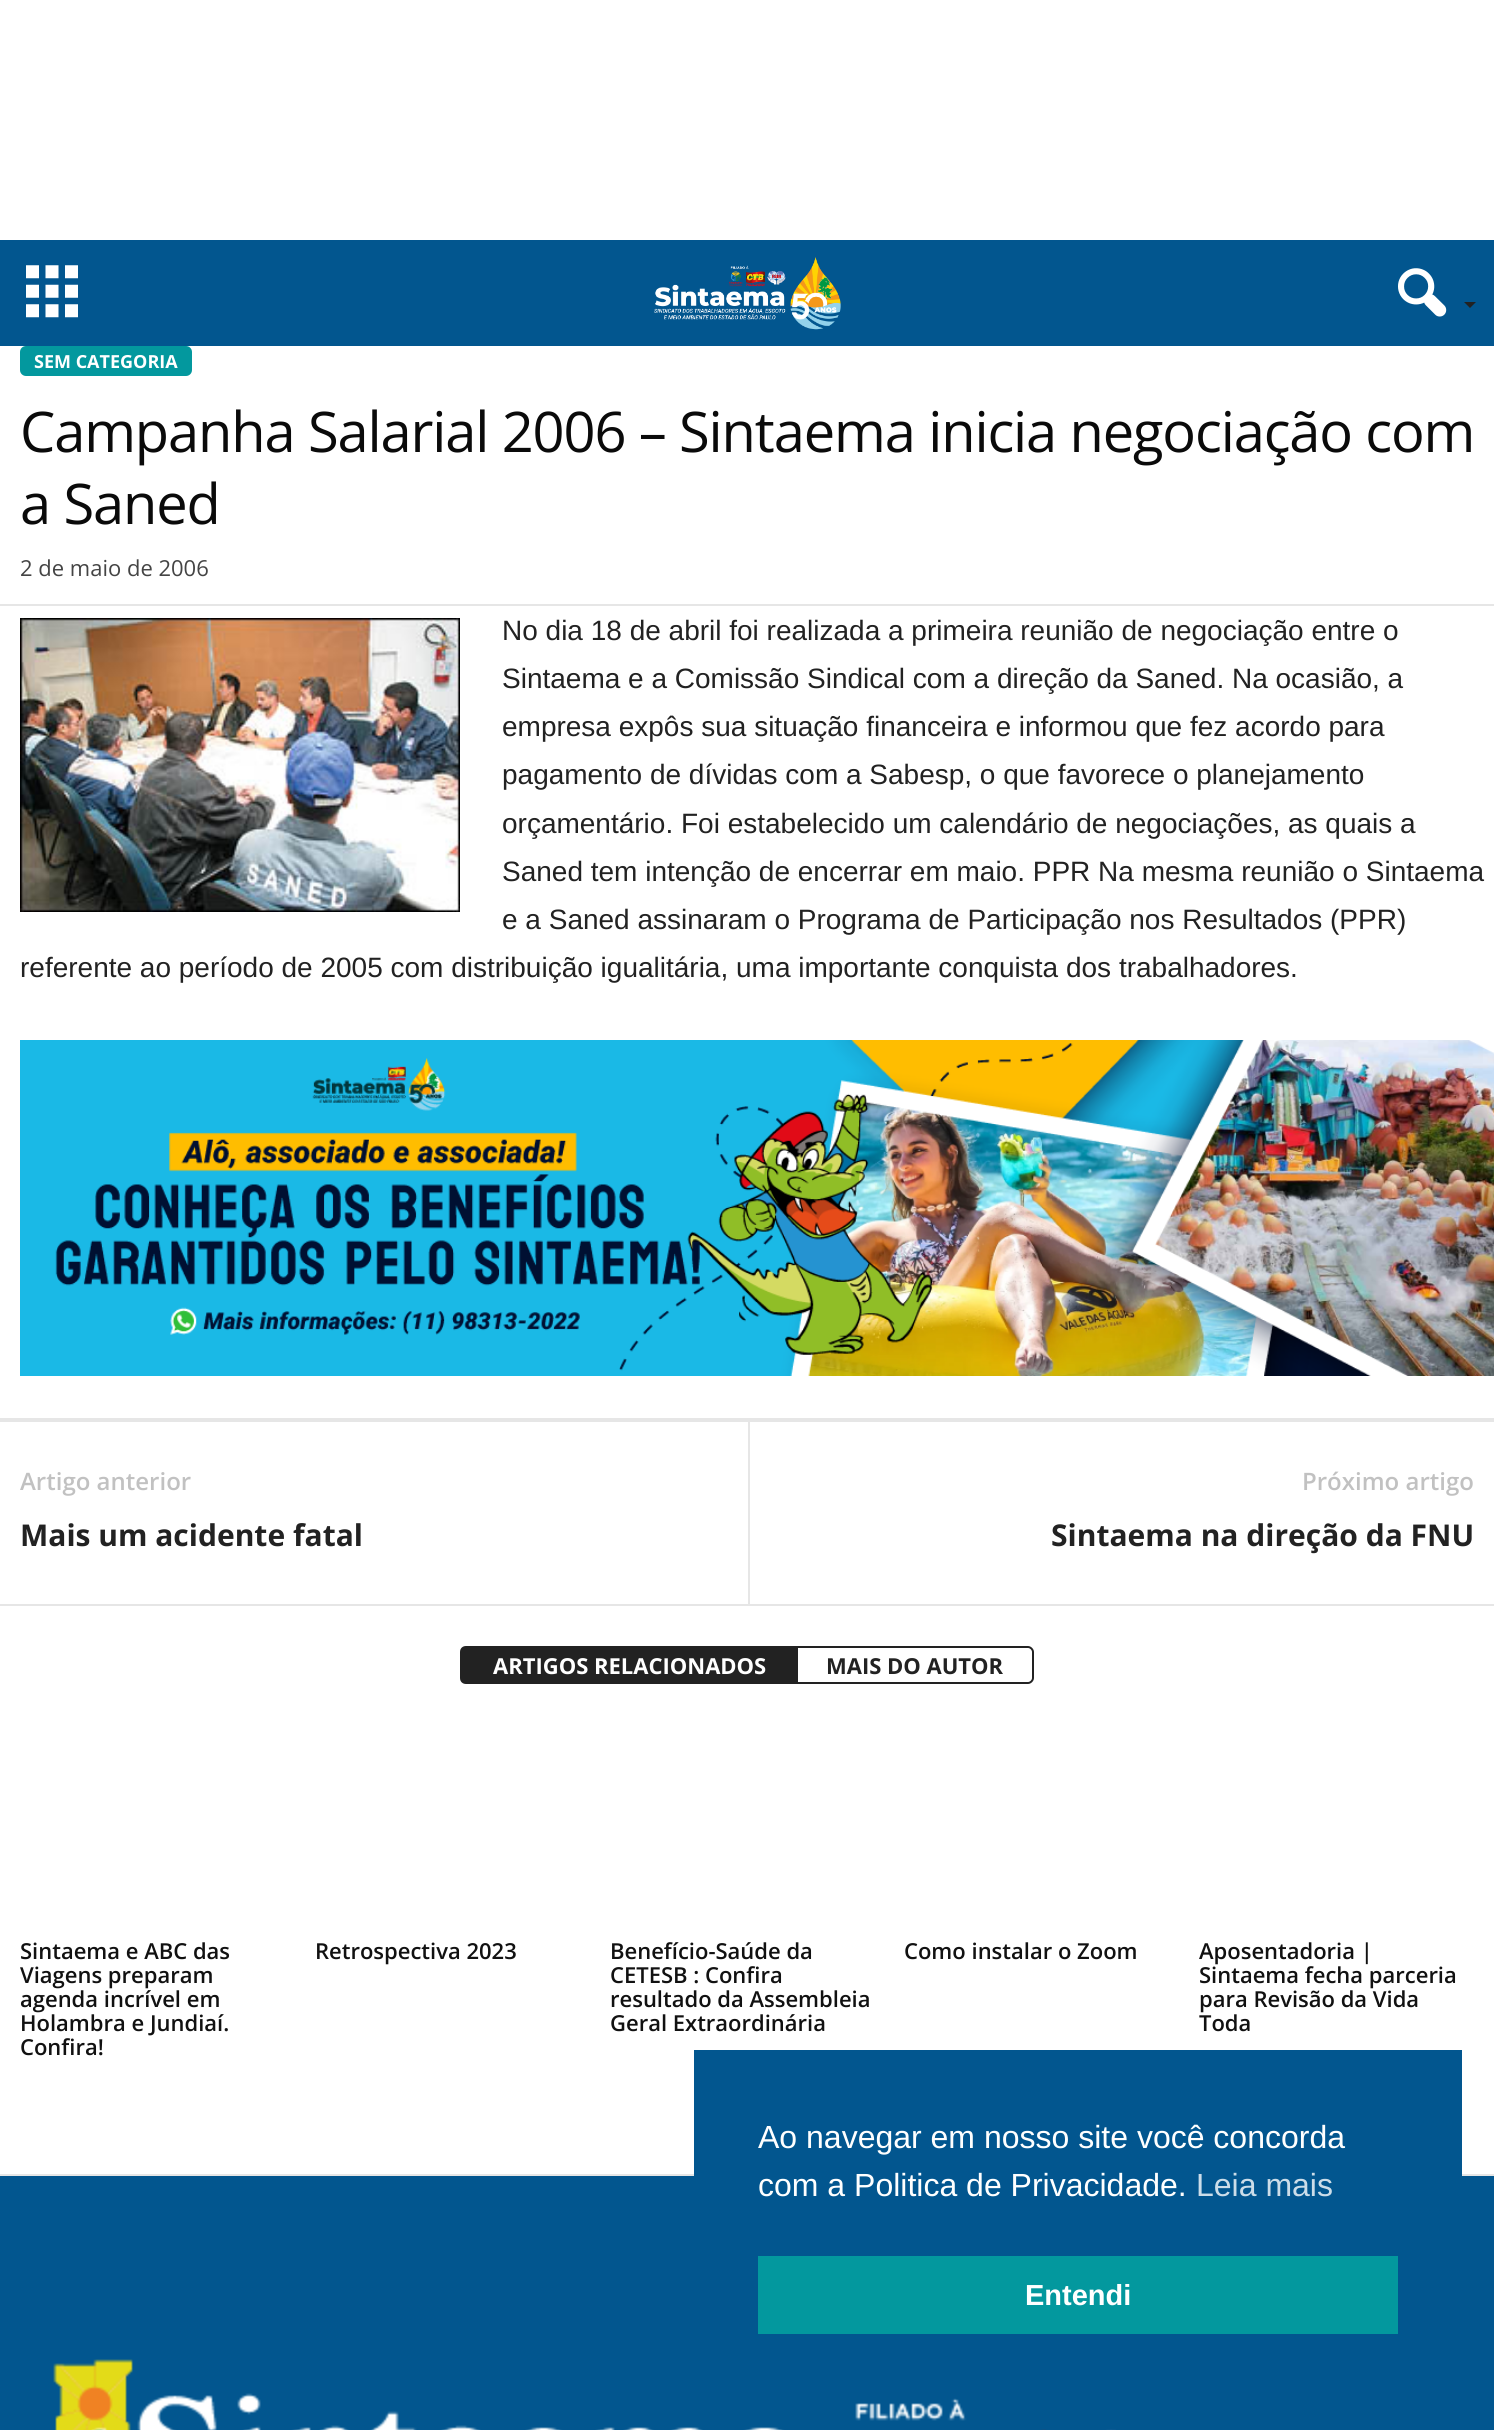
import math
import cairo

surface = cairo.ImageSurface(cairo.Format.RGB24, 1494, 2430)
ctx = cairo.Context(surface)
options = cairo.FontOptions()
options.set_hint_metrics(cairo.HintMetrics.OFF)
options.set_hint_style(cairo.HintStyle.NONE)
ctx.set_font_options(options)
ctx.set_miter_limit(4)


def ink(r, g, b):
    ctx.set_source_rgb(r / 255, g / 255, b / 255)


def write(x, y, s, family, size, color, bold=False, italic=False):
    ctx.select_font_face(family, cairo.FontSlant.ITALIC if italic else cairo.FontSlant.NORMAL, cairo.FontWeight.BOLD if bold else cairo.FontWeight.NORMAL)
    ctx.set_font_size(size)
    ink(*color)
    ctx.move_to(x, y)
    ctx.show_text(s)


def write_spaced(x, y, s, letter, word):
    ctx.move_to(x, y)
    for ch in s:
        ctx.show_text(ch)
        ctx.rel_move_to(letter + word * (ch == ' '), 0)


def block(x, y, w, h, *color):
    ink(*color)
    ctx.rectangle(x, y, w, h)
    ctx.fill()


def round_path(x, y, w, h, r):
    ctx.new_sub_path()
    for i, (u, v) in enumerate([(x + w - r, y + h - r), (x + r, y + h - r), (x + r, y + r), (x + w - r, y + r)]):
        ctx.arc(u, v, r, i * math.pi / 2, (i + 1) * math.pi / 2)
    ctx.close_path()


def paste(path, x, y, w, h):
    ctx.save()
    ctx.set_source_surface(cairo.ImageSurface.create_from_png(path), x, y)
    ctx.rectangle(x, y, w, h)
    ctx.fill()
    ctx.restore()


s1 = dict(family="Open Sans", size=18, color=(255, 255, 255), bold=True)
s2 = dict(family="Open Sans", size=22, color=(68, 68, 68))
s3 = dict(family="Liberation Sans", size=28, color=(34, 34, 34))
s4 = dict(family="Open Sans SemiBold", size=24, color=(193, 193, 193))
s5 = dict(family="Open Sans", size=30, color=(34, 34, 34), bold=True)
s6 = dict(family="Open Sans", size=22, color=(255, 255, 255), bold=True)
s7 = dict(family="Open Sans", size=22, color=(34, 34, 34), bold=True)
s8 = dict(family="Open Sans SemiBold", size=22, color=(17, 17, 17))
s9 = dict(family="Liberation Sans", size=32, color=(255, 255, 255))
s10 = dict(family="Liberation Sans", size=32, color=(204, 221, 233))
s11 = dict(family="Liberation Sans", size=29, color=(255, 255, 255), bold=True)

ink(255, 255, 255)
ctx.paint()
block(0, 240, 1494, 106, 2, 86, 143)
paste("pic1.png", 26, 265, 52, 53)
paste("pic2.png", 654, 257, 187, 73)
paste("pic3.png", 1398, 268, 49, 49)
ink(34, 34, 34)
ctx.new_path()
ctx.move_to(1464, 302)
ctx.line_to(1476, 302)
ctx.line_to(1470, 308)
ctx.close_path()
ctx.fill()
block(0, 2174, 1494, 2, 230, 230, 230)
ink(3, 152, 158)
round_path(20, 346, 172, 30, 6)
ctx.fill()
write(34, 368, "SEM CATEGORIA", **s1)
ctx.select_font_face("Open Sans")
ctx.set_font_size(56)
ink(10, 10, 10)
write_spaced(20, 452, "Campanha Salarial 2006 – Sintaema inicia negociação com", -1.12, 0)
write_spaced(20, 524, "a Saned", -1.12, 0)
write(20, 576, "2 de maio de 2006", **s2)
block(0, 604, 1494, 2, 230, 230, 230)
paste("pic4.png", 20, 618, 440, 294)
write(502, 640, "No dia 18 de abril foi realizada a primeira reunião de negociação entre o", **s3)
write(502, 688, "Sintaema e a Comissão Sindical com a direção da Saned. Na ocasião, a", **s3)
write(502, 736, "empresa expôs sua situação financeira e informou que fez acordo para", **s3)
write(502, 784, "pagamento de dívidas com a Sabesp, o que favorece o planejamento", **s3)
write(502, 833, "orçamentário. Foi estabelecido um calendário de negociações, as quais a", **s3)
write(502, 881, "Saned tem intenção de encerrar em maio. PPR Na mesma reunião o Sintaema", **s3)
write(502, 929, "e a Saned assinaram o Programa de Participação nos Resultados (PPR)", **s3)
write(20, 977, "referente ao período de 2005 com distribuição igualitária, uma importante conquista dos trabalhadores.", **s3)
paste("pic5.png", 20, 1040, 1474, 336)
block(0, 1418, 1494, 4, 230, 230, 230)
write(20, 1490, "Artigo anterior", **s4)
write(20, 1546, "Mais um acidente fatal", **s5)
block(748, 1422, 2, 182, 230, 230, 230)
write(1302, 1490, "Próximo artigo", **s4)
write(1051, 1546, "Sintaema na direção da FNU", **s5)
block(0, 1604, 1494, 2, 230, 230, 230)
ink(34, 34, 34)
ctx.new_path()
ctx.move_to(466, 1647)
ctx.line_to(797, 1647)
ctx.line_to(797, 1683)
ctx.line_to(466, 1683)
ctx.curve_to(463, 1683, 461, 1681, 461, 1678)
ctx.line_to(461, 1652)
ctx.curve_to(461, 1649, 463, 1647, 466, 1647)
ctx.close_path()
ctx.fill_preserve()
ctx.stroke()
write(493, 1674, "ARTIGOS RELACIONADOS", **s6)
ink(34, 34, 34)
ctx.set_fill_rule(cairo.FillRule.EVEN_ODD)
ctx.new_path()
ctx.move_to(798, 1646)
ctx.line_to(1028, 1646)
ctx.curve_to(1031, 1646, 1034, 1649, 1034, 1652)
ctx.line_to(1034, 1678)
ctx.curve_to(1034, 1681, 1031, 1684, 1028, 1684)
ctx.line_to(798, 1684)
ctx.close_path()
ctx.move_to(798, 1648)
ctx.line_to(1028, 1648)
ctx.curve_to(1030, 1648, 1032, 1650, 1032, 1652)
ctx.line_to(1032, 1678)
ctx.curve_to(1032, 1680, 1030, 1682, 1028, 1682)
ctx.line_to(798, 1682)
ctx.close_path()
ctx.fill()
write(826, 1674, "MAIS DO AUTOR", **s7)
write(20, 1959, "Sintaema e ABC das", **s8)
write(20, 1983, "Viagens preparam", **s8)
write(20, 2007, "agenda incrível em", **s8)
write(20, 2031, "Holambra e Jundiaí.", **s8)
write(20, 2055, "Confira!", **s8)
write(315, 1959, "Retrospectiva 2023", **s8)
write(610, 1959, "Benefício-Saúde da", **s8)
write(610, 1983, "CETESB : Confira", **s8)
write(610, 2007, "resultado da Assembleia", **s8)
write(610, 2031, "Geral Extraordinária", **s8)
write(904, 1959, "Como instalar o Zoom", **s8)
write(1199, 1959, "Aposentadoria |", **s8)
write(1199, 1983, "Sintaema fecha parceria", **s8)
write(1199, 2007, "para Revisão da Vida", **s8)
write(1199, 2031, "Toda", **s8)
block(0, 2176, 1494, 254, 2, 86, 143)
paste("pic6.png", 53, 2359, 1063, 71)
block(694, 2050, 768, 348, 2, 86, 143)
write(758, 2148, "Ao navegar em nosso site você concorda", **s9)
write(758, 2196, "com a Politica de Privacidade.", **s9)
write(1196, 2196, "Leia mais", **s10)
block(758, 2256, 640, 78, 3, 152, 158)
write(1025, 2305, "Entendi", **s11)
surface.write_to_png("screenshot.png")
